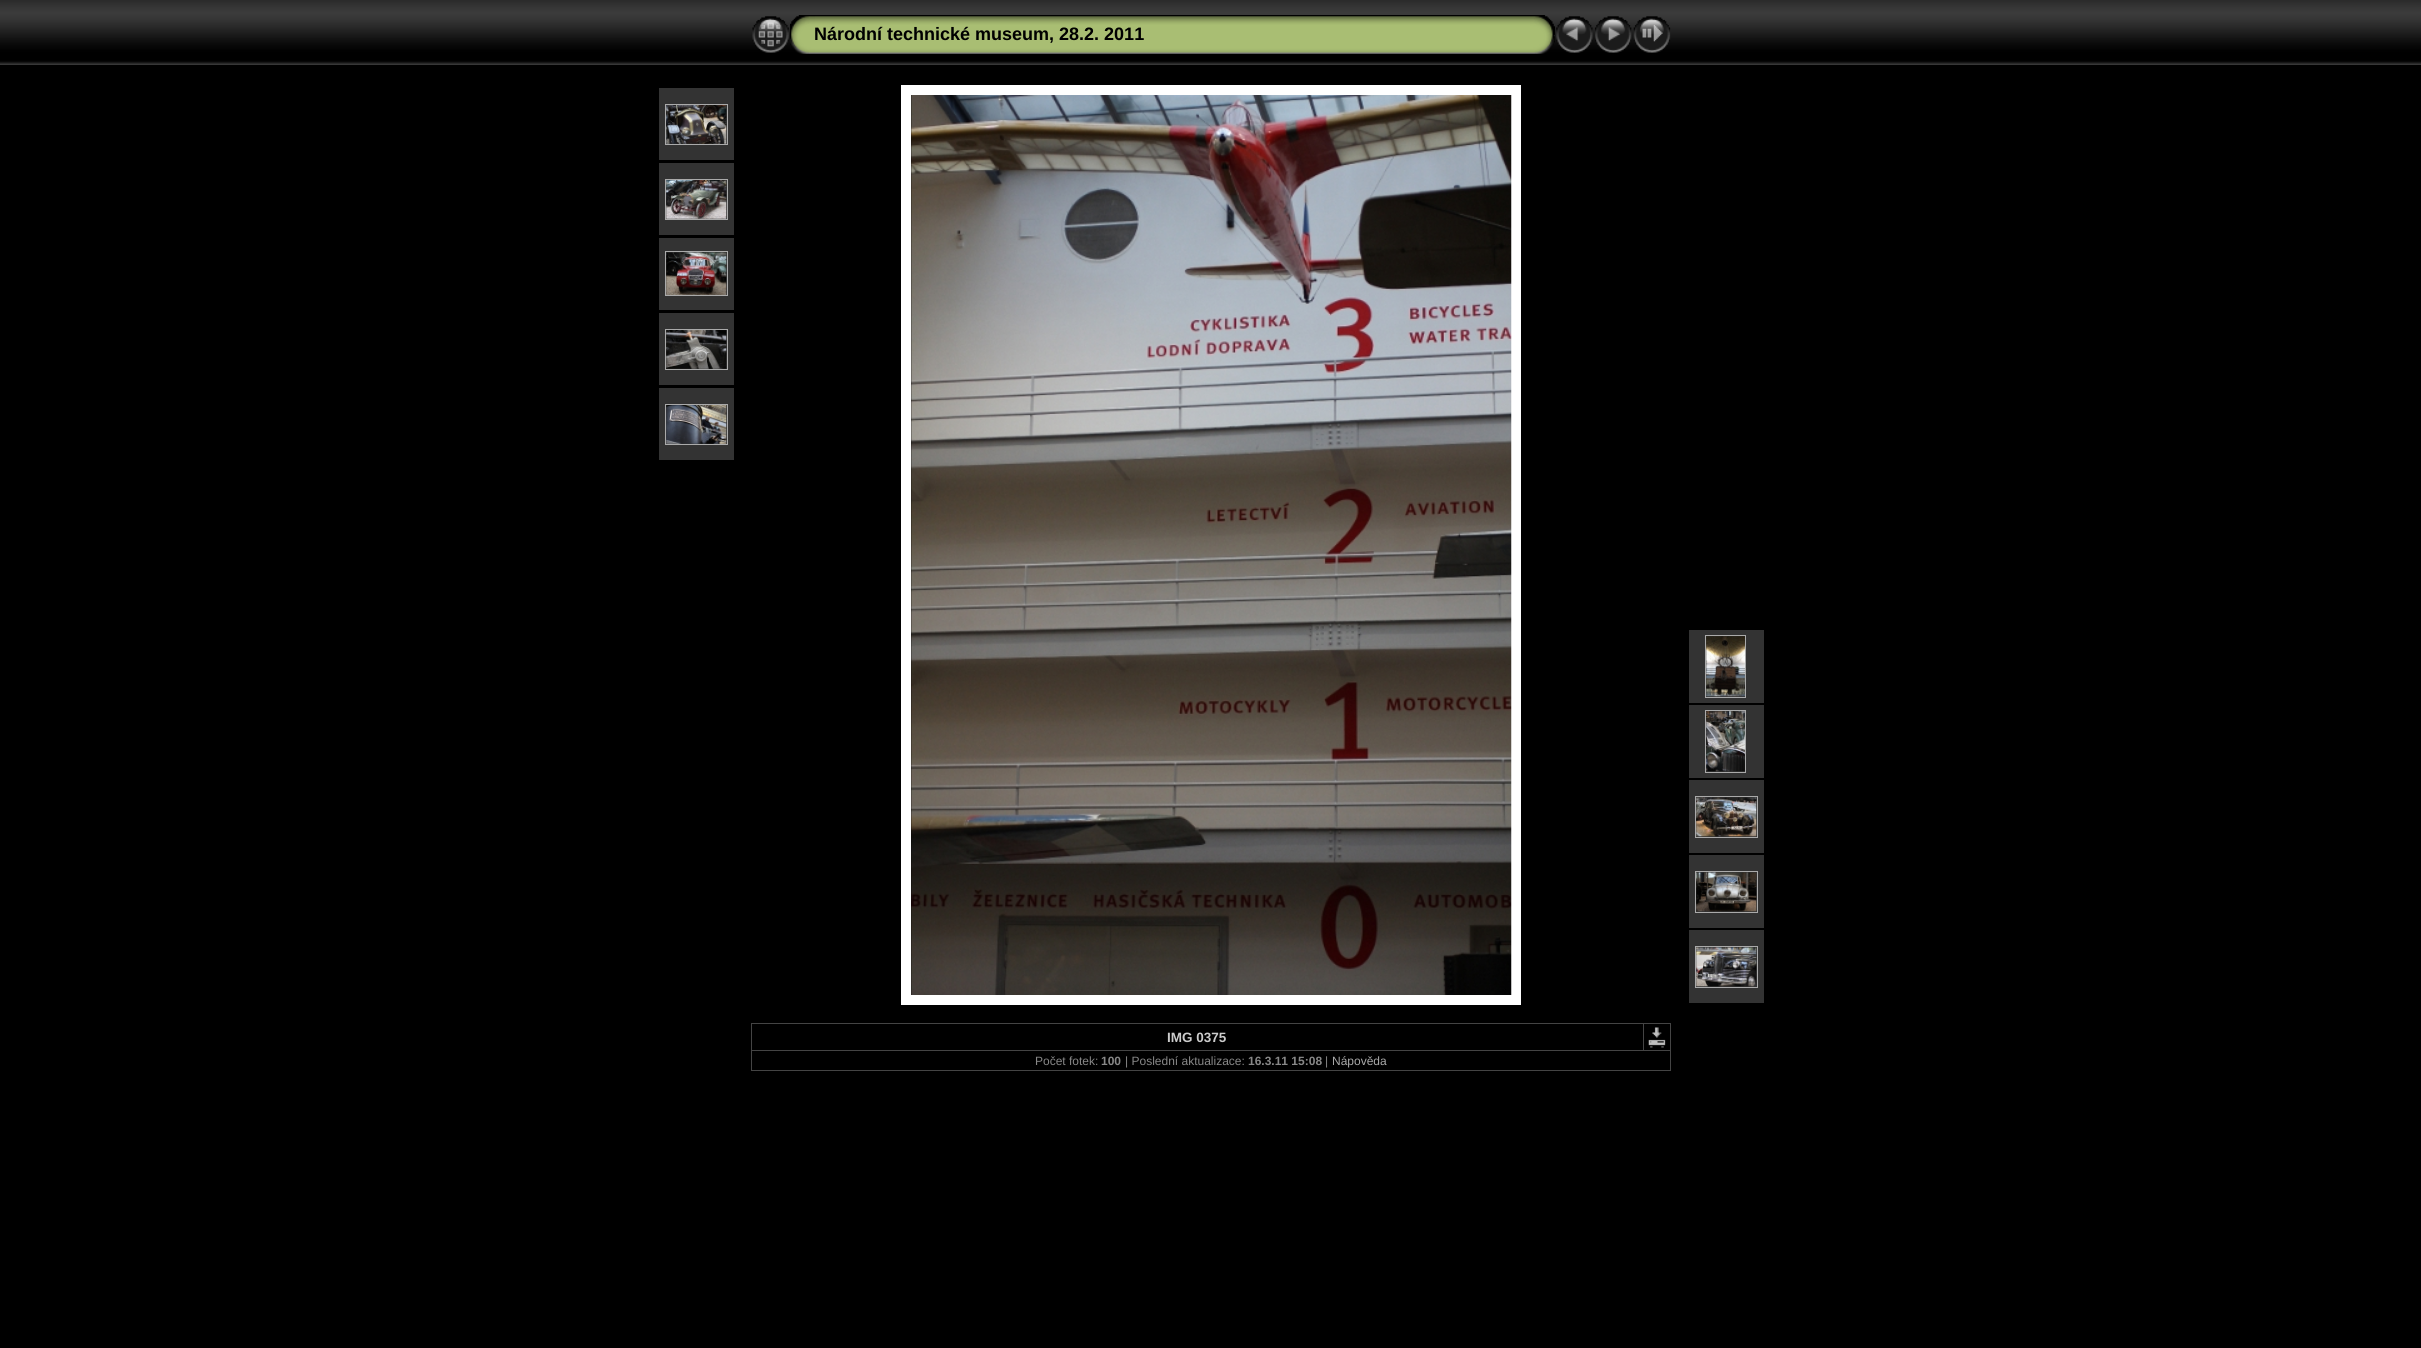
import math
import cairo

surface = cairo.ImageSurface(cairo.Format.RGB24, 2421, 1348)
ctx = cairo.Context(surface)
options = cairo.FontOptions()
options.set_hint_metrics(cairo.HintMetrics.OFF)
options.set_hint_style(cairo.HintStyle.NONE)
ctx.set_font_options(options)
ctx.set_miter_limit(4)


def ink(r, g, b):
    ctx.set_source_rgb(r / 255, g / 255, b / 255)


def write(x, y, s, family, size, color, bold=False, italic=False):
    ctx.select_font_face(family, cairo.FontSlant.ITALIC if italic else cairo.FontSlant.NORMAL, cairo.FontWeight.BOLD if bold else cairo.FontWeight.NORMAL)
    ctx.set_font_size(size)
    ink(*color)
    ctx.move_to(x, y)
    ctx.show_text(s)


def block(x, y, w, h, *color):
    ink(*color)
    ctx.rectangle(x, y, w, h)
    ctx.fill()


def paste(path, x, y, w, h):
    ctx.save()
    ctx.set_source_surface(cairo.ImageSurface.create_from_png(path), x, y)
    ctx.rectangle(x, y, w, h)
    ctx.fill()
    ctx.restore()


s1 = dict(family="Liberation Sans", size=18, color=(0, 0, 0), bold=True)
s2 = dict(family="Liberation Sans", size=13.5, color=(204, 204, 204), bold=True)
s3 = dict(family="Liberation Sans", size=12, color=(136, 136, 136))
s4 = dict(family="Liberation Sans", size=12, color=(136, 136, 136), bold=True)
s5 = dict(family="Liberation Sans", size=12, color=(170, 170, 170))

ink(0, 0, 0)
ctx.paint()
paste("pic1.png", 0, 0, 2421, 65)
paste("pic2.png", 752, 16, 37, 37)
paste("pic3.png", 790, 15, 25, 39)
paste("pic4.png", 815, 15, 715, 39)
write(814, 40, "Národní technické museum, 28.2. 2011", **s1)
paste("pic5.png", 1530, 15, 25, 39)
paste("pic6.png", 1556, 16, 37, 37)
paste("pic7.png", 1595, 16, 37, 37)
paste("pic8.png", 1633, 16, 38, 37)
block(659, 88, 75, 72, 51, 51, 51)
ctx.rectangle(665.5, 104.5, 62, 40)
ink(170, 170, 170)
ctx.set_line_width(1)
ctx.stroke()
paste("pic9.png", 666, 105, 61, 39)
block(659, 163, 75, 72, 51, 51, 51)
ctx.rectangle(665.5, 179.5, 62, 40)
ink(170, 170, 170)
ctx.stroke()
paste("pic10.png", 666, 180, 61, 39)
block(659, 238, 75, 72, 51, 51, 51)
ctx.rectangle(665.5, 251.5, 62, 44)
ink(170, 170, 170)
ctx.stroke()
paste("pic11.png", 666, 252, 61, 43)
block(659, 313, 75, 72, 51, 51, 51)
ctx.rectangle(665.5, 329.5, 62, 40)
ink(170, 170, 170)
ctx.stroke()
paste("pic12.png", 666, 330, 61, 39)
block(659, 388, 75, 72, 51, 51, 51)
ctx.rectangle(665.5, 404.5, 62, 40)
ink(170, 170, 170)
ctx.stroke()
paste("pic13.png", 666, 405, 61, 39)
ctx.rectangle(906, 90, 610, 910)
ink(255, 255, 255)
ctx.set_line_width(10)
ctx.stroke()
paste("pic14.png", 911, 95, 601, 900)
block(1689, 630, 75, 73, 51, 51, 51)
ctx.rectangle(1705.5, 635.5, 40, 62)
ink(170, 170, 170)
ctx.set_line_width(1)
ctx.stroke()
paste("pic15.png", 1706, 636, 39, 61)
block(1689, 705, 75, 73, 51, 51, 51)
ctx.rectangle(1705.5, 710.5, 40, 62)
ink(170, 170, 170)
ctx.stroke()
paste("pic16.png", 1706, 711, 39, 61)
block(1689, 780, 75, 73, 51, 51, 51)
ctx.rectangle(1695.5, 796.5, 62, 41)
ink(170, 170, 170)
ctx.stroke()
paste("pic17.png", 1696, 797, 61, 40)
block(1689, 855, 75, 73, 51, 51, 51)
ctx.rectangle(1695.5, 871.5, 62, 41)
ink(170, 170, 170)
ctx.stroke()
paste("pic18.png", 1696, 872, 61, 40)
block(1689, 930, 75, 73, 51, 51, 51)
ctx.rectangle(1695.5, 946.5, 62, 41)
ink(170, 170, 170)
ctx.stroke()
paste("pic19.png", 1696, 947, 61, 40)
block(751, 1023, 920, 1, 68, 68, 68)
block(1670, 1023, 1, 48, 68, 68, 68)
block(751, 1070, 920, 1, 68, 68, 68)
block(751, 1023, 1, 48, 68, 68, 68)
write(1167, 1042, "IMG 0375", **s2)
block(751, 1050, 920, 1, 68, 68, 68)
block(1643, 1023, 1, 28, 68, 68, 68)
paste("pic20.png", 1648, 1027, 18, 21)
write(1035, 1065, "Počet fotek:", **s3)
write(1101, 1065, "100", **s4)
write(1125, 1065, "| Poslední aktualizace:", **s3)
write(1248, 1065, "16.3.11 15:08", **s4)
write(1325, 1065, "|", **s3)
write(1332, 1065, "Nápověda", **s5)
surface.write_to_png("screenshot.png")
